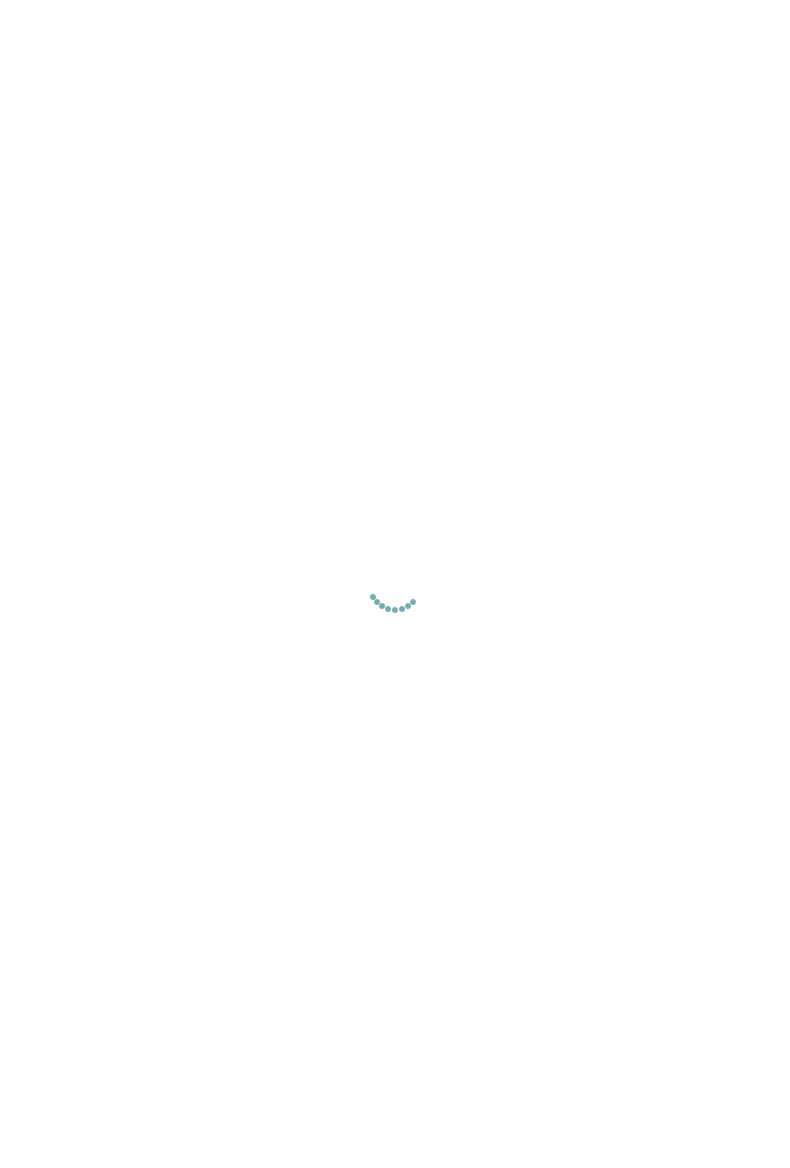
import math
import cairo

surface = cairo.ImageSurface(cairo.Format.RGB24, 790, 1168)
ctx = cairo.Context(surface)
options = cairo.FontOptions()
options.set_hint_metrics(cairo.HintMetrics.OFF)
options.set_hint_style(cairo.HintStyle.NONE)
ctx.set_font_options(options)
ctx.set_miter_limit(4)


def ink(r, g, b):
    ctx.set_source_rgb(r / 255, g / 255, b / 255)


ink(255, 255, 255)
ctx.paint()
ink(118, 175, 173)
ctx.arc(382, 606, 3, 0, 2 * math.pi)
ctx.fill()
ctx.arc(377, 602, 3, 0, 2 * math.pi)
ctx.fill()
ctx.arc(373, 597, 3, 0, 2 * math.pi)
ctx.fill()
ctx.arc(413, 602, 3, 0, 2 * math.pi)
ctx.fill()
ctx.arc(388, 609, 3, 0, 2 * math.pi)
ctx.fill()
ctx.arc(395, 610, 3, 0, 2 * math.pi)
ctx.fill()
ctx.arc(402, 609, 3, 0, 2 * math.pi)
ctx.fill()
ctx.arc(408, 606, 3, 0, 2 * math.pi)
ctx.fill()
surface.write_to_png("screenshot.png")
